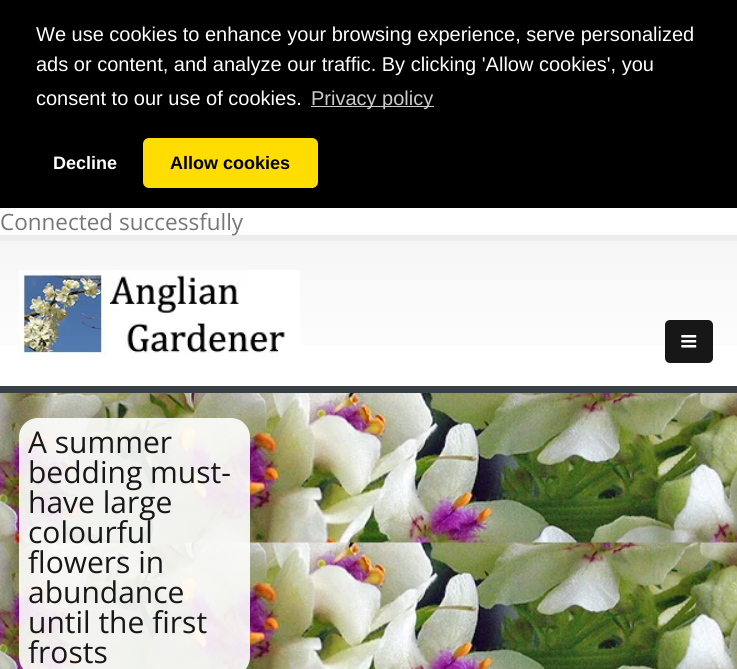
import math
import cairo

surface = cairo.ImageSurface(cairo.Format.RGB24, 737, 669)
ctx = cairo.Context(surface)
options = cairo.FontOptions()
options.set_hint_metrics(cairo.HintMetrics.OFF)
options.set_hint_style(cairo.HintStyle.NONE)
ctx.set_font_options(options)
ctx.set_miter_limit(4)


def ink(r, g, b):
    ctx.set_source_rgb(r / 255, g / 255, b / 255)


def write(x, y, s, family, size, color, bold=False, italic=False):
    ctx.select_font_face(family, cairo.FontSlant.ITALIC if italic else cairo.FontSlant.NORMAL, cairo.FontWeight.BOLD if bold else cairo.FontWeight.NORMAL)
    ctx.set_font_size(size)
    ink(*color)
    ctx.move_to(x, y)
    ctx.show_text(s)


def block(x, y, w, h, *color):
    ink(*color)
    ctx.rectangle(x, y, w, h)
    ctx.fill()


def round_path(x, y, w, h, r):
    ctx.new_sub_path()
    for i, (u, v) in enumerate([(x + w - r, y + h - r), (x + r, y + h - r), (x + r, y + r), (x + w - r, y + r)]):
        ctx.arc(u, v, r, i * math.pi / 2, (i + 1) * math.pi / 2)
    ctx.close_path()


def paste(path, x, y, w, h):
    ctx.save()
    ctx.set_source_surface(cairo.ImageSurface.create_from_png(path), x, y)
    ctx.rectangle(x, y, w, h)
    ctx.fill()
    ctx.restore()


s1 = dict(family="Liberation Sans", size=20, color=(255, 255, 255))
s2 = dict(family="Liberation Sans", size=20, color=(204, 204, 204))
s3 = dict(family="Liberation Sans", size=18, color=(255, 255, 255), bold=True)
s4 = dict(family="Liberation Sans", size=18, color=(0, 0, 0), bold=True)
s5 = dict(family="Open Sans", size=22.5, color=(119, 119, 119))
s6 = dict(family="Open Sans", size=30, color=(24, 24, 24))

ink(255, 255, 255)
ctx.paint()
block(0, 0, 737, 208, 0, 0, 0)
write(36, 41, "We use cookies to enhance your browsing experience, serve personalized", **s1)
write(36, 71, "ads or content, and analyze our traffic. By clicking 'Allow cookies', you", **s1)
write(36, 105, "consent to our use of cookies.", **s1)
block(311, 106, 123, 1, 204, 204, 204)
write(311, 105, "Privacy policy", **s2)
write(53, 169, "Decline", **s3)
ink(255, 221, 0)
round_path(143, 138, 175, 50, 6)
ctx.fill()
write(170, 169, "Allow cookies", **s4)
block(0, 235, 737, 6, 237, 237, 237)
write(0, 230, "Connected successfully", **s5)
gradient = cairo.LinearGradient(369, 241, 369, 386)
gradient.add_color_stop_rgba(0, 0.965, 0.965, 0.965, 1)
gradient.add_color_stop_rgba(1, 1, 1, 1, 1)
ctx.set_source(gradient)
ctx.rectangle(0, 241, 737, 105)
ctx.fill()
paste("pic1.png", 19, 270, 281, 88)
ink(23, 23, 23)
round_path(665, 320, 48, 43, 5)
ctx.fill()
paste("pic2.png", 681, 335, 16, 13)
paste("pic3.png", 0, 393, 737, 276)
block(0, 386, 737, 7, 56, 64, 69)
ctx.set_source_rgba(1, 1, 1, 0.9)
round_path(19, 418, 231, 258, 19)
ctx.fill()
write(28, 453, "A summer", **s6)
write(28, 483, "bedding must-", **s6)
write(28, 513, "have large", **s6)
write(28, 543, "colourful", **s6)
write(28, 573, "flowers in", **s6)
write(28, 603, "abundance", **s6)
write(28, 633, "until the first", **s6)
write(28, 663, "frosts", **s6)
surface.write_to_png("screenshot.png")
